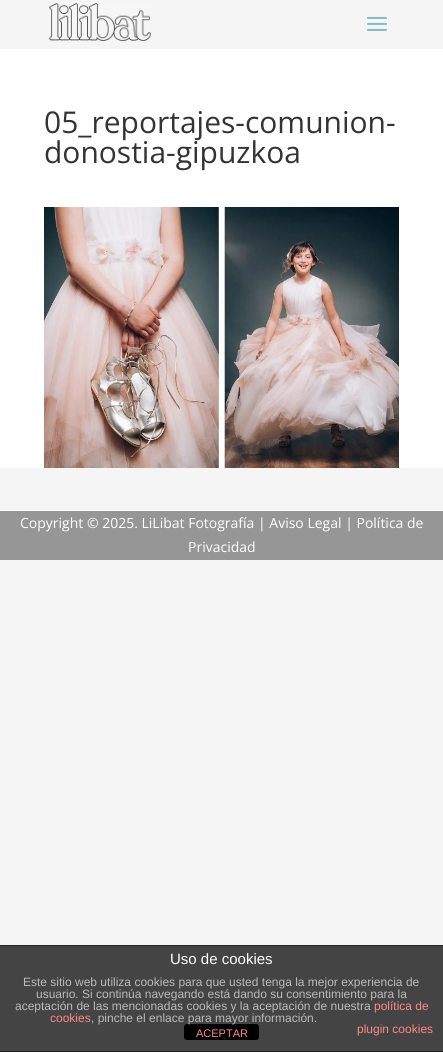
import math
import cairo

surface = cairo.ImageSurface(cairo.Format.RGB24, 443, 1052)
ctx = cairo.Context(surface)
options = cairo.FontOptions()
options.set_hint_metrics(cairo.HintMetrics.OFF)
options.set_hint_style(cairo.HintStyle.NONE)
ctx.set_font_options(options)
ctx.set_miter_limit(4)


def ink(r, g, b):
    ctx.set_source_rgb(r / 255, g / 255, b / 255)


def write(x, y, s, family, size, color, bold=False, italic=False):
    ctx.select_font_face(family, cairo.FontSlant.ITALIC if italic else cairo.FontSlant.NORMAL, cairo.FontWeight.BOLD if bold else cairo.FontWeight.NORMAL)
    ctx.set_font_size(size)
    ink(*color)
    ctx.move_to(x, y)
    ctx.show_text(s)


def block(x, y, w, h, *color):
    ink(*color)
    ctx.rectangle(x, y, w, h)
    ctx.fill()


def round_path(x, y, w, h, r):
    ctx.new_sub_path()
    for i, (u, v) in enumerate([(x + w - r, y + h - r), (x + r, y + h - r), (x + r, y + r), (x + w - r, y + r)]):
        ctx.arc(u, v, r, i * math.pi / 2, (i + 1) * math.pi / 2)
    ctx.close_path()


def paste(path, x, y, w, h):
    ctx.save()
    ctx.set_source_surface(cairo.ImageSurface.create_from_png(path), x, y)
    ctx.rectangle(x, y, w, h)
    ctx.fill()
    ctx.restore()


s1 = dict(family="Open Sans", size=30, color=(51, 51, 51))
s2 = dict(family="Open Sans", size=14, color=(255, 255, 255))
s3 = dict(family="Liberation Sans", size=15, color=(255, 255, 255))
s4 = dict(family="Liberation Sans", size=12, color=(187, 187, 187))
s5 = dict(family="Liberation Sans", size=12, color=(255, 136, 136))
s6 = dict(family="Liberation Sans", size=11, color=(255, 136, 136))

ink(245, 245, 245)
ctx.paint()
paste("pic1.png", 49, 3, 102, 38)
paste("pic2.png", 367, 16, 20, 15)
block(0, 49, 443, 419, 255, 255, 255)
write(44, 133, "05_reportajes-comunion-", **s1)
write(44, 163, "donostia-gipuzkoa", **s1)
paste("pic3.png", 44, 207, 355, 261)
block(0, 510, 443, 1, 255, 255, 255)
block(0, 511, 443, 49, 150, 150, 150)
write(20, 528, "Copyright © 2025. LiLibat Fotografía | Aviso Legal | Política de", **s2)
write(188, 552, "Privacidad", **s2)
block(0, 946, 443, 105, 68, 68, 68)
block(0, 945, 443, 1, 34, 34, 34)
block(0, 1051, 443, 1, 34, 34, 34)
write(170, 964, "Uso de cookies", **s3)
write(23, 986, "Este sitio web utiliza cookies para que usted tenga la mejor experiencia de", **s4)
write(36, 998, "usuario. Si continúa navegando está dando su consentimiento para la", **s4)
write(15, 1010, "aceptación de las mencionadas cookies y la aceptación de nuestra", **s4)
write(374, 1010, "política de", **s5)
write(50, 1022, "cookies", **s5)
ink(0, 0, 0)
round_path(184, 1024, 75, 16, 3)
ctx.fill()
write(91, 1022, ", pinche el enlace para mayor información.", **s4)
write(357, 1033, "plugin cookies", **s5)
write(196, 1037, "ACEPTAR", **s6)
surface.write_to_png("screenshot.png")
